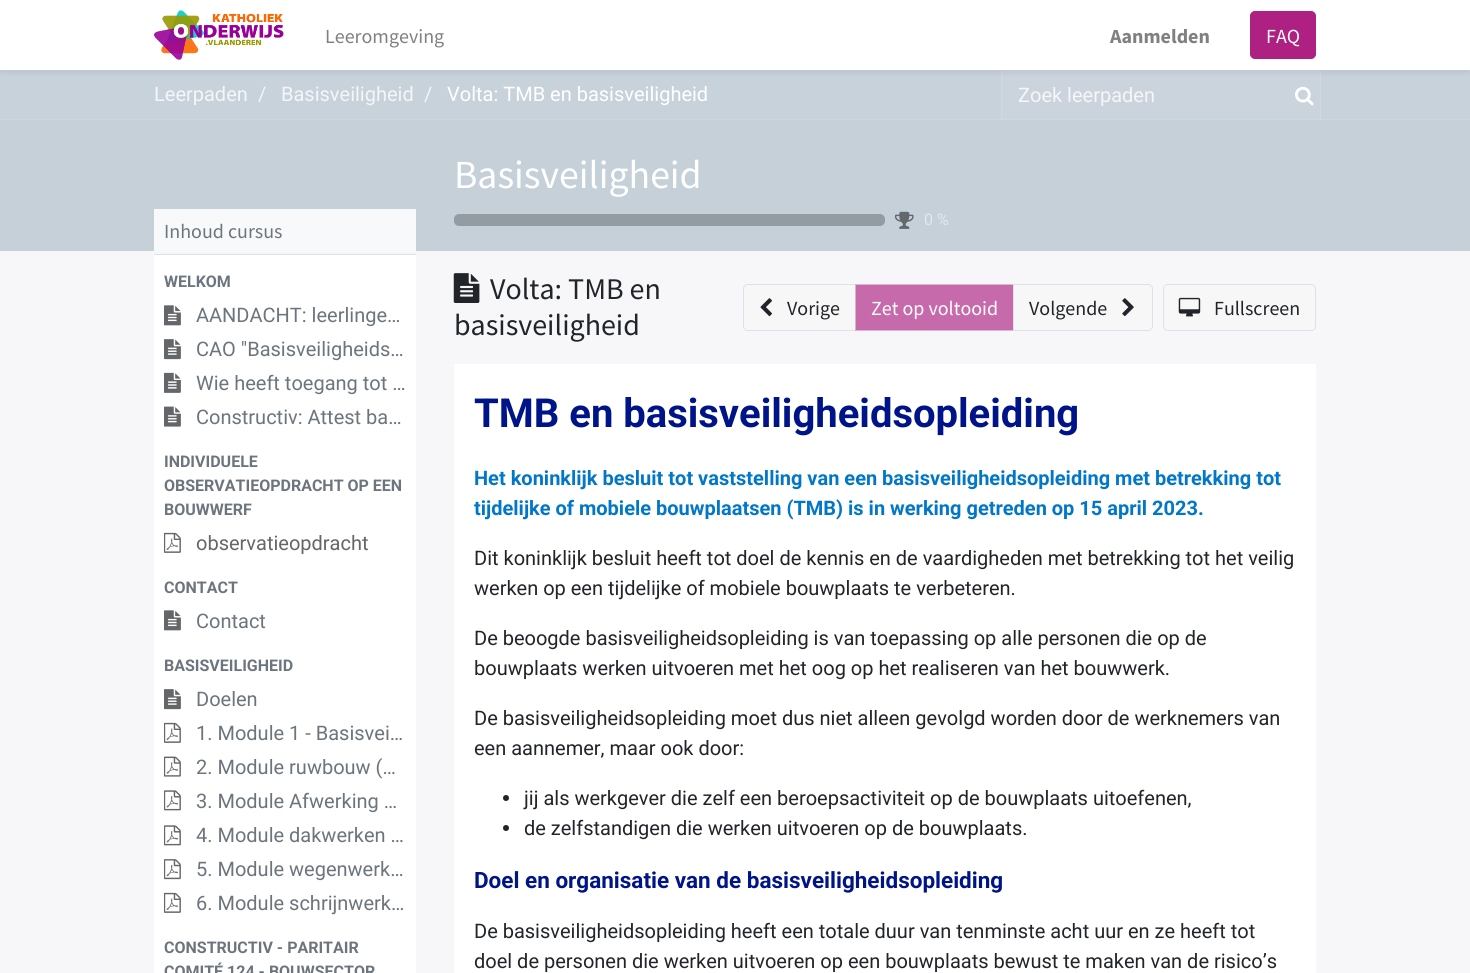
import math
import cairo

surface = cairo.ImageSurface(cairo.Format.RGB24, 1470, 973)
ctx = cairo.Context(surface)
options = cairo.FontOptions()
options.set_hint_metrics(cairo.HintMetrics.OFF)
options.set_hint_style(cairo.HintStyle.NONE)
ctx.set_font_options(options)
ctx.set_miter_limit(4)


def ink(r, g, b):
    ctx.set_source_rgb(r / 255, g / 255, b / 255)


def write(x, y, s, family, size, color, bold=False, italic=False):
    ctx.select_font_face(family, cairo.FontSlant.ITALIC if italic else cairo.FontSlant.NORMAL, cairo.FontWeight.BOLD if bold else cairo.FontWeight.NORMAL)
    ctx.set_font_size(size)
    ink(*color)
    ctx.move_to(x, y)
    ctx.show_text(s)


def block(x, y, w, h, *color):
    ink(*color)
    ctx.rectangle(x, y, w, h)
    ctx.fill()


def round_path(x, y, w, h, r):
    ctx.new_sub_path()
    for i, (u, v) in enumerate([(x + w - r, y + h - r), (x + r, y + h - r), (x + r, y + r), (x + w - r, y + r)]):
        ctx.arc(u, v, r, i * math.pi / 2, (i + 1) * math.pi / 2)
    ctx.close_path()


def blur_box(x, y, w, h, r, blur, alpha):
    ctx.push_group_with_content(cairo.Content.ALPHA)
    ctx.set_operator(cairo.Operator.SOURCE)
    for i in range(15, -16, -2):
        e = blur * i / 6
        if min(w, h) + 2 * e > 0:
            ctx.set_source_rgba(0, 0, 0, alpha * math.erfc((i - 1) / 8.5) / 2)
            round_path(x - e, y - e, w + 2 * e, h + 2 * e, max(0, min(r + e + blur * .6, min(w, h) / 2 + e)))
            ctx.fill()
    ctx.mask(ctx.pop_group())


def paste(path, x, y, w, h):
    ctx.save()
    ctx.set_source_surface(cairo.ImageSurface.create_from_png(path), x, y)
    ctx.rectangle(x, y, w, h)
    ctx.fill()
    ctx.restore()


s1 = dict(family="Source Sans Pro", size=20, color=(128, 128, 128))
s2 = dict(family="Source Sans Pro", size=20, color=(128, 128, 128), bold=True)
s3 = dict(family="Source Sans Pro", size=20, color=(255, 255, 255))
s4 = dict(family="Roboto", size=20, color=(244, 246, 248))
s5 = dict(family="Roboto", size=20, color=(255, 255, 255))
s6 = dict(family="Source Sans Pro", size=39.75, color=(255, 255, 255))
s7 = dict(family="Roboto", size=16, color=(226, 232, 236))
s8 = dict(family="Source Sans Pro", size=20, color=(108, 117, 125))
s9 = dict(family="Roboto", size=16, color=(108, 117, 125), bold=True)
s10 = dict(family="Roboto", size=20, color=(108, 117, 125))
s11 = dict(family="Roboto", size=20, color=(100, 102, 105))
s12 = dict(family="Source Sans Pro", size=30, color=(33, 37, 41))
s13 = dict(family="Source Sans Pro", size=20, color=(33, 37, 41))
s14 = dict(family="Roboto", size=40, color=(0, 20, 137), bold=True)
s15 = dict(family="Roboto", size=20, color=(0, 119, 200), bold=True)
s16 = dict(family="Roboto", size=20, color=(33, 37, 41))
s17 = dict(family="Roboto", size=22.5, color=(0, 20, 137), bold=True)

ink(247, 247, 250)
ctx.paint()
block(0, 71, 1470, 48, 200, 210, 219)
block(0, 70, 1470, 1, 206, 215, 223)
block(1002, 71, 318, 48, 203, 212, 221)
block(1320, 71, 1, 48, 208, 216, 224)
block(1001, 71, 1, 48, 208, 216, 224)
ink(0, 0, 0)
blur_box(0, 3, 1470, 70, 0, 2.5, 0.07)
block(0, 0, 1470, 70, 255, 255, 255)
paste("pic1.png", 153, 10, 131, 50)
write(325, 43, "Leeromgeving", **s1)
write(1110, 43, "Aanmelden", **s2)
ink(174, 32, 129)
round_path(1250.5, 11.5, 65, 47, 4.5)
ctx.fill_preserve()
ctx.set_line_width(1)
ctx.stroke()
write(1266, 43, "FAQ", **s3)
block(0, 120, 1470, 131, 197, 208, 217)
block(0, 119, 1470, 1, 206, 215, 223)
write(154, 101, "Leerpaden", **s4)
write(258, 101, "/", **s4)
write(281, 101, "Basisveiligheid", **s4)
write(424, 101, "/", **s4)
write(447, 101, "Volta: TMB en basisveiligheid", **s5)
write(1018, 102, "Zoek leerpaden", **s4)
paste("pic2.png", 1295, 86, 19, 20)
write(454, 188, "Basisveiligheid", **s6)
ink(148, 156, 163)
round_path(454, 214, 431, 12, 5)
ctx.fill()
paste("pic3.png", 895, 211, 19, 18)
write(924, 225, "0 %", **s7)
block(154, 255, 262, 718, 255, 255, 255)
block(154, 209, 262, 42, 248, 249, 250)
block(154, 254, 262, 1, 222, 226, 230)
write(164, 238, "Inhoud cursus", **s8)
write(164, 287, "WELKOM", **s9)
paste("pic4.png", 164, 305, 17, 21)
write(196, 322, "AANDACHT: leerlinge…", **s10)
paste("pic5.png", 164, 339, 17, 21)
write(196, 356, "CAO \"Basisveiligheids…", **s10)
paste("pic6.png", 164, 372, 17, 21)
write(196, 390, "Wie heeft toegang tot …", **s10)
paste("pic7.png", 164, 406, 17, 21)
write(196, 424, "Constructiv: Attest ba…", **s10)
write(164, 467, "INDIVIDUELE", **s9)
write(164, 491, "OBSERVATIEOPDRACHT OP EEN", **s9)
write(164, 515, "BOUWWERF", **s9)
paste("pic8.png", 164, 532, 17, 21)
write(196, 550, "observatieopdracht", **s11)
write(164, 593, "CONTACT", **s9)
paste("pic4.png", 164, 610, 17, 21)
write(196, 628, "Contact", **s10)
write(164, 671, "BASISVEILIGHEID", **s9)
paste("pic5.png", 164, 689, 17, 21)
write(196, 706, "Doelen", **s10)
paste("pic8.png", 164, 722, 17, 21)
write(196, 740, "1. Module 1 - Basisvei…", **s10)
paste("pic9.png", 164, 756, 17, 21)
write(196, 774, "2. Module ruwbouw (…", **s10)
paste("pic10.png", 164, 790, 17, 21)
write(196, 808, "3. Module Afwerking …", **s10)
paste("pic10.png", 164, 825, 17, 21)
write(196, 842, "4. Module dakwerken …", **s10)
paste("pic11.png", 164, 859, 17, 21)
write(196, 876, "5. Module wegenwerk…", **s10)
paste("pic8.png", 164, 892, 17, 21)
write(196, 910, "6. Module schrijnwerk…", **s10)
write(164, 953, "CONSTRUCTIV - PARITAIR", **s9)
write(164, 977, "COMITÉ 124 - BOUWSECTOR", **s9)
paste("pic12.png", 453, 273, 27, 30)
write(490, 299, "Volta: TMB en", **s12)
write(454, 335, "basisveiligheid", **s12)
ink(247, 247, 247)
ctx.new_path()
ctx.move_to(748, 284.5)
ctx.line_to(855.5, 284.5)
ctx.line_to(855.5, 330.5)
ctx.line_to(748, 330.5)
ctx.curve_to(745.5, 330.5, 743.5, 328.5, 743.5, 326)
ctx.line_to(743.5, 289)
ctx.curve_to(743.5, 286.5, 745.5, 284.5, 748, 284.5)
ctx.close_path()
ctx.fill_preserve()
ink(222, 226, 230)
ctx.stroke()
paste("pic13.png", 760, 298, 12, 19)
write(787, 315, "Vorige", **s13)
ctx.set_source_rgba(0.682, 0.125, 0.506, 0.65)
ctx.rectangle(855, 284, 158, 47)
ctx.fill()
ctx.rectangle(855.5, 284.5, 158, 46)
ctx.set_source_rgba(0.871, 0.886, 0.902, 0.65)
ctx.stroke()
write(871, 315, "Zet op voltooid", **s3)
ink(247, 247, 247)
ctx.new_path()
ctx.move_to(1013.5, 284.5)
ctx.line_to(1148, 284.5)
ctx.curve_to(1150.5, 284.5, 1152.5, 286.5, 1152.5, 289)
ctx.line_to(1152.5, 326)
ctx.curve_to(1152.5, 328.5, 1150.5, 330.5, 1148, 330.5)
ctx.line_to(1013.5, 330.5)
ctx.close_path()
ctx.fill_preserve()
ink(222, 226, 230)
ctx.stroke()
write(1029, 315, "Volgende", **s13)
paste("pic14.png", 1122, 298, 12, 19)
ink(247, 247, 247)
round_path(1163.5, 284.5, 152, 46, 4.5)
ctx.fill_preserve()
ink(222, 226, 230)
ctx.stroke()
paste("pic15.png", 1178, 297, 23, 20)
write(1214, 315, "Fullscreen", **s13)
block(454, 364, 862, 609, 255, 255, 255)
write(474, 427, "TMB en basisveiligheidsopleiding", **s14)
write(474, 485, "Het koninklijk besluit tot vaststelling van een basisveiligheidsopleiding met betrekking tot", **s15)
write(474, 515, "tijdelijke of mobiele bouwplaatsen (TMB) is in werking getreden op 15 april 2023.", **s15)
write(474, 565, "Dit koninklijk besluit heeft tot doel de kennis en de vaardigheden met betrekking tot het veilig", **s16)
write(474, 595, "werken op een tijdelijke of mobiele bouwplaats te verbeteren.", **s16)
write(474, 645, "De beoogde basisveiligheidsopleiding is van toepassing op alle personen die op de", **s16)
write(474, 675, "bouwplaats werken uitvoeren met het oog op het realiseren van het bouwwerk.", **s16)
write(474, 725, "De basisveiligheidsopleiding moet dus niet alleen gevolgd worden door de werknemers van", **s16)
write(474, 755, "een aannemer, maar ook door:", **s16)
ctx.new_path()
ctx.arc(506, 798, 3, 0, 2 * math.pi)
ctx.fill()
write(524, 805, "jij als werkgever die zelf een beroepsactiviteit op de bouwplaats uitoefenen,", **s16)
ctx.new_path()
ctx.arc(506, 828, 3, 0, 2 * math.pi)
ctx.fill()
write(524, 835, "de zelfstandigen die werken uitvoeren op de bouwplaats.", **s16)
write(474, 888, "Doel en organisatie van de basisveiligheidsopleiding", **s17)
write(474, 938, "De basisveiligheidsopleiding heeft een totale duur van tenminste acht uur en ze heeft tot", **s16)
write(474, 968, "doel de personen die werken uitvoeren op een bouwplaats bewust te maken van de risico’s", **s16)
surface.write_to_png("screenshot.png")
